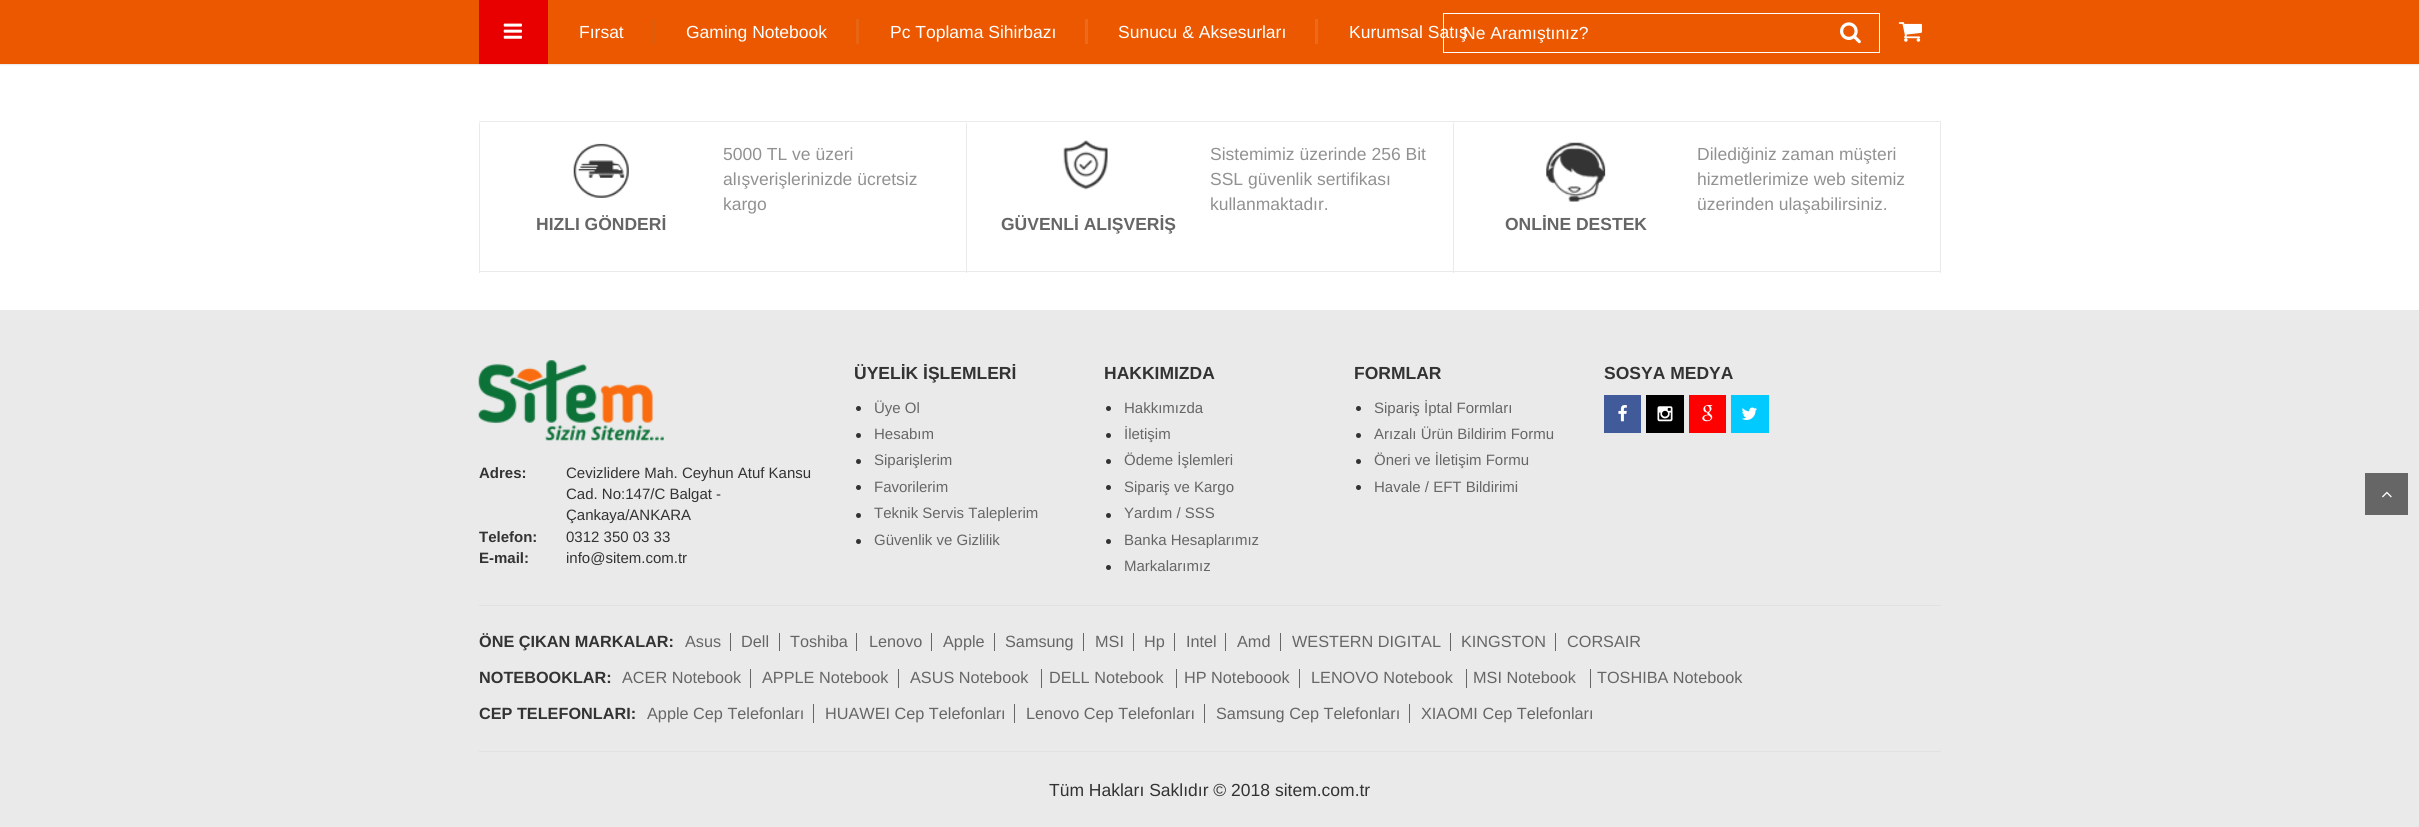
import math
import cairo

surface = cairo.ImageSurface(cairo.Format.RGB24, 2419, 827)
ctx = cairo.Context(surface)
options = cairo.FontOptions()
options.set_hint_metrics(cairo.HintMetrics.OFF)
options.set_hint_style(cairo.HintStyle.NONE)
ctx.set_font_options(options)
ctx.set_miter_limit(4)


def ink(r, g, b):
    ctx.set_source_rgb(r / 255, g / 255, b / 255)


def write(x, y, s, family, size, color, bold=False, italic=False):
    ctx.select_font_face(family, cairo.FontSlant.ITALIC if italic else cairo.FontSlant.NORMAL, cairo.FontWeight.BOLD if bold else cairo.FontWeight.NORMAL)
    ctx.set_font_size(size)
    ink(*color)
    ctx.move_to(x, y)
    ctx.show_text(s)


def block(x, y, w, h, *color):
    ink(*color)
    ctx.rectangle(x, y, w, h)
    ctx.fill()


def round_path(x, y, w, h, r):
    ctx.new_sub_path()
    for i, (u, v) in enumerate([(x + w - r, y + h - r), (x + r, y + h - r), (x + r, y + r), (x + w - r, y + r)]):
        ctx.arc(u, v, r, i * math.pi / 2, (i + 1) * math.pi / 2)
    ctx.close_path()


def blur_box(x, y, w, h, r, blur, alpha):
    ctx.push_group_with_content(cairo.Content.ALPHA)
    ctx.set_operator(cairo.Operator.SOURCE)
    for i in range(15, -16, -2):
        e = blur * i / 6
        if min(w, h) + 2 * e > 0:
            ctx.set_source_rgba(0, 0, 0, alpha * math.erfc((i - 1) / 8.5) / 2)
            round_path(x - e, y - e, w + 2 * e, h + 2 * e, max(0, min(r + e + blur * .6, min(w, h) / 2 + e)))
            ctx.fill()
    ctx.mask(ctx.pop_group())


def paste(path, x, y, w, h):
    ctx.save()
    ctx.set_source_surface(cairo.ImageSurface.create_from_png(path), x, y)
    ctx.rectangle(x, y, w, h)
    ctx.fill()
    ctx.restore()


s1 = dict(family="Liberation Sans", size=17.5, color=(255, 255, 255))
s2 = dict(family="Liberation Sans", size=17.5, color=(145, 145, 145))
s3 = dict(family="Liberation Sans", size=17.5, color=(102, 102, 102), bold=True)
s4 = dict(family="Liberation Sans", size=17.5, color=(51, 51, 51), bold=True)
s5 = dict(family="Liberation Sans", size=15, color=(102, 102, 102))
s6 = dict(family="Liberation Sans", size=15, color=(51, 51, 51), bold=True)
s7 = dict(family="Liberation Sans", size=15, color=(51, 51, 51))
s8 = dict(family="Liberation Sans", size=16.25, color=(51, 51, 51), bold=True)
s9 = dict(family="Liberation Sans", size=16.25, color=(102, 102, 102))
s10 = dict(family="Liberation Sans", size=17.5, color=(51, 51, 51))

ink(255, 255, 255)
ctx.paint()
ink(50, 50, 50)
blur_box(0, 1, 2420, 64, 0, 0.5, 0.1)
block(0, 0, 2419, 64, 235, 88, 0)
block(479, 0, 69, 64, 232, 0, 0)
paste("pic1.png", 503, 23, 19, 16)
block(652, 19, 3, 25, 224, 92, 9)
write(579, 38, "Fırsat", **s1)
block(856, 19, 3, 25, 231, 101, 19)
write(686, 38, "Gaming Notebook", **s1)
block(1085, 19, 3, 25, 236, 107, 26)
write(890, 38, "Pc Toplama Sihirbazı", **s1)
block(1315, 19, 3, 25, 236, 107, 26)
write(1118, 38, "Sunucu & Aksesurları", **s1)
write(1349, 38, "Kurumsal Satış", **s1)
ctx.rectangle(1443.5, 13.5, 436, 39)
ctx.set_line_width(1)
ctx.stroke()
write(1463, 39, "Ne Aramıştınız?", **s1)
paste("pic2.png", 1840, 22, 21, 22)
paste("pic3.png", 1898, 22, 24, 20)
block(479, 121, 1462, 1, 234, 234, 234)
block(1940, 121, 1, 152, 234, 234, 234)
block(479, 271, 1461, 1, 234, 234, 234)
block(479, 123, 1, 150, 234, 234, 234)
write(723, 160, "5000 TL ve üzeri", **s2)
write(723, 185, "alışverişlerinizde ücretsiz", **s2)
write(723, 210, "kargo", **s2)
paste("pic4.png", 573, 143, 56, 55)
write(536, 230, "HIZLI GÖNDERİ", **s3)
block(966, 123, 1, 150, 234, 234, 234)
write(1210, 160, "Sistemimiz üzerinde 256 Bit", **s2)
write(1210, 185, "SSL güvenlik sertifikası", **s2)
write(1210, 210, "kullanmaktadır.", **s2)
paste("pic5.png", 1063, 140, 45, 50)
write(1001, 230, "GÜVENLİ ALIŞVERİŞ", **s3)
block(1453, 123, 1, 150, 234, 234, 234)
write(1697, 160, "Dilediğiniz zaman müşteri", **s2)
write(1697, 185, "hizmetlerimize web sitemiz", **s2)
write(1697, 210, "üzerinden ulaşabilirsiniz.", **s2)
paste("pic6.png", 1546, 142, 60, 60)
write(1505, 230, "ONLİNE DESTEK", **s3)
block(0, 310, 2419, 517, 234, 234, 234)
write(854, 379, "ÜYELİK İŞLEMLERİ", **s4)
ctx.new_path()
ctx.arc(858.5, 408.5, 2.5, 0, 2 * math.pi)
ctx.fill()
write(874, 413, "Üye Ol", **s5)
ink(51, 51, 51)
ctx.new_path()
ctx.arc(858.5, 435.5, 2.5, 0, 2 * math.pi)
ctx.fill()
write(874, 439, "Hesabım", **s5)
ink(51, 51, 51)
ctx.new_path()
ctx.arc(858.5, 461.5, 2.5, 0, 2 * math.pi)
ctx.fill()
write(874, 465, "Siparişlerim", **s5)
ink(51, 51, 51)
ctx.new_path()
ctx.arc(858.5, 487.5, 2.5, 0, 2 * math.pi)
ctx.fill()
write(874, 492, "Favorilerim", **s5)
ink(51, 51, 51)
ctx.new_path()
ctx.arc(858.5, 515.5, 2.5, 0, 2 * math.pi)
ctx.fill()
write(874, 518, "Teknik Servis Taleplerim", **s5)
ink(51, 51, 51)
ctx.new_path()
ctx.arc(858.5, 541.5, 2.5, 0, 2 * math.pi)
ctx.fill()
write(874, 545, "Güvenlik ve Gizlilik", **s5)
write(1104, 379, "HAKKIMIZDA", **s4)
ctx.new_path()
ctx.arc(1108.5, 408.5, 2.5, 0, 2 * math.pi)
ctx.fill()
write(1124, 413, "Hakkımızda", **s5)
ink(51, 51, 51)
ctx.new_path()
ctx.arc(1108.5, 435.5, 2.5, 0, 2 * math.pi)
ctx.fill()
write(1124, 439, "İletişim", **s5)
ink(51, 51, 51)
ctx.new_path()
ctx.arc(1108.5, 461.5, 2.5, 0, 2 * math.pi)
ctx.fill()
write(1124, 465, "Ödeme İşlemleri", **s5)
ink(51, 51, 51)
ctx.new_path()
ctx.arc(1108.5, 487.5, 2.5, 0, 2 * math.pi)
ctx.fill()
write(1124, 492, "Sipariş ve Kargo", **s5)
ink(51, 51, 51)
ctx.new_path()
ctx.arc(1108.5, 515.5, 2.5, 0, 2 * math.pi)
ctx.fill()
write(1124, 518, "Yardım / SSS", **s5)
ink(51, 51, 51)
ctx.new_path()
ctx.arc(1108.5, 541.5, 2.5, 0, 2 * math.pi)
ctx.fill()
write(1124, 545, "Banka Hesaplarımız", **s5)
ink(51, 51, 51)
ctx.new_path()
ctx.arc(1108.5, 567.5, 2.5, 0, 2 * math.pi)
ctx.fill()
write(1124, 571, "Markalarımız", **s5)
write(1354, 379, "FORMLAR", **s4)
ctx.new_path()
ctx.arc(1358.5, 408.5, 2.5, 0, 2 * math.pi)
ctx.fill()
write(1374, 413, "Sipariş İptal Formları", **s5)
ink(51, 51, 51)
ctx.new_path()
ctx.arc(1358.5, 435.5, 2.5, 0, 2 * math.pi)
ctx.fill()
write(1374, 439, "Arızalı Ürün Bildirim Formu", **s5)
ink(51, 51, 51)
ctx.new_path()
ctx.arc(1358.5, 461.5, 2.5, 0, 2 * math.pi)
ctx.fill()
write(1374, 465, "Öneri ve İletişim Formu", **s5)
ink(51, 51, 51)
ctx.new_path()
ctx.arc(1358.5, 487.5, 2.5, 0, 2 * math.pi)
ctx.fill()
write(1374, 492, "Havale / EFT Bildirimi", **s5)
write(1604, 379, "SOSYA MEDYA", **s4)
block(1604, 395, 37, 38, 65, 90, 153)
paste("pic7.png", 1618, 405, 9, 17)
block(1646, 395, 38, 38, 0, 0, 0)
paste("pic8.png", 1657, 406, 16, 16)
block(1689, 395, 37, 38, 255, 0, 0)
paste("pic9.png", 1702, 405, 11, 17)
block(1731, 395, 38, 38, 0, 202, 255)
paste("pic10.png", 1741, 407, 16, 13)
paste("pic11.png", 478, 360, 186, 81)
write(479, 478, "Adres:", **s6)
write(566, 478, "Cevizlidere Mah. Ceyhun Atuf Kansu", **s7)
write(566, 499, "Cad. No:147/C Balgat -", **s7)
write(566, 520, "Çankaya/ANKARA", **s7)
write(479, 542, "Telefon:", **s6)
write(566, 542, "0312 350 03 33", **s7)
write(479, 563, "E-mail:", **s6)
write(566, 563, "info@sitem.com.tr", **s7)
block(479, 605, 1462, 1, 225, 225, 225)
write(479, 647, "ÖNE ÇIKAN MARKALAR:", **s8)
write(685, 647, "Asus", **s9)
block(730, 633, 1, 18, 102, 102, 102)
write(741, 647, "Dell", **s9)
block(779, 633, 1, 18, 102, 102, 102)
write(790, 647, "Toshiba", **s9)
block(856, 633, 1, 18, 102, 102, 102)
write(869, 647, "Lenovo", **s9)
block(931, 633, 1, 18, 102, 102, 102)
write(943, 647, "Apple", **s9)
block(994, 633, 1, 18, 102, 102, 102)
write(1005, 647, "Samsung", **s9)
block(1083, 633, 1, 18, 102, 102, 102)
write(1095, 647, "MSI", **s9)
block(1133, 633, 1, 18, 102, 102, 102)
write(1144, 647, "Hp", **s9)
block(1174, 633, 1, 18, 102, 102, 102)
write(1186, 647, "Intel", **s9)
block(1225, 633, 1, 18, 102, 102, 102)
write(1237, 647, "Amd", **s9)
block(1280, 633, 1, 18, 102, 102, 102)
write(1292, 647, "WESTERN DIGITAL", **s9)
block(1450, 633, 1, 18, 102, 102, 102)
write(1461, 647, "KINGSTON", **s9)
block(1555, 633, 1, 18, 102, 102, 102)
write(1567, 647, "CORSAIR", **s9)
write(479, 683, "NOTEBOOKLAR:", **s8)
write(622, 683, "ACER Notebook", **s9)
block(750, 669, 1, 19, 102, 102, 102)
write(762, 683, "APPLE Notebook", **s9)
block(898, 669, 1, 19, 102, 102, 102)
write(910, 683, "ASUS Notebook", **s9)
block(1041, 669, 1, 19, 102, 102, 102)
write(1049, 683, "DELL Notebook", **s9)
block(1176, 669, 1, 19, 102, 102, 102)
write(1184, 683, "HP Noteboook", **s9)
block(1299, 669, 1, 19, 102, 102, 102)
write(1311, 683, "LENOVO Notebook", **s9)
block(1466, 669, 1, 19, 102, 102, 102)
write(1473, 683, "MSI Notebook", **s9)
block(1590, 669, 1, 19, 102, 102, 102)
write(1597, 683, "TOSHIBA Notebook", **s9)
write(479, 719, "CEP TELEFONLARI:", **s8)
write(647, 719, "Apple Cep Telefonları", **s9)
block(813, 704, 1, 19, 102, 102, 102)
write(825, 719, "HUAWEI Cep Telefonları", **s9)
block(1014, 704, 1, 19, 102, 102, 102)
write(1026, 719, "Lenovo Cep Telefonları", **s9)
block(1204, 704, 1, 19, 102, 102, 102)
write(1216, 719, "Samsung Cep Telefonları", **s9)
block(1409, 704, 1, 19, 102, 102, 102)
write(1421, 719, "XIAOMI Cep Telefonları", **s9)
block(479, 751, 1462, 1, 225, 225, 225)
write(1049, 796, "Tüm Hakları Saklıdır © 2018 sitem.com.tr", **s10)
block(2365, 473, 43, 42, 102, 102, 102)
paste("pic12.png", 2382, 491, 10, 7)
surface.write_to_png("screenshot.png")
